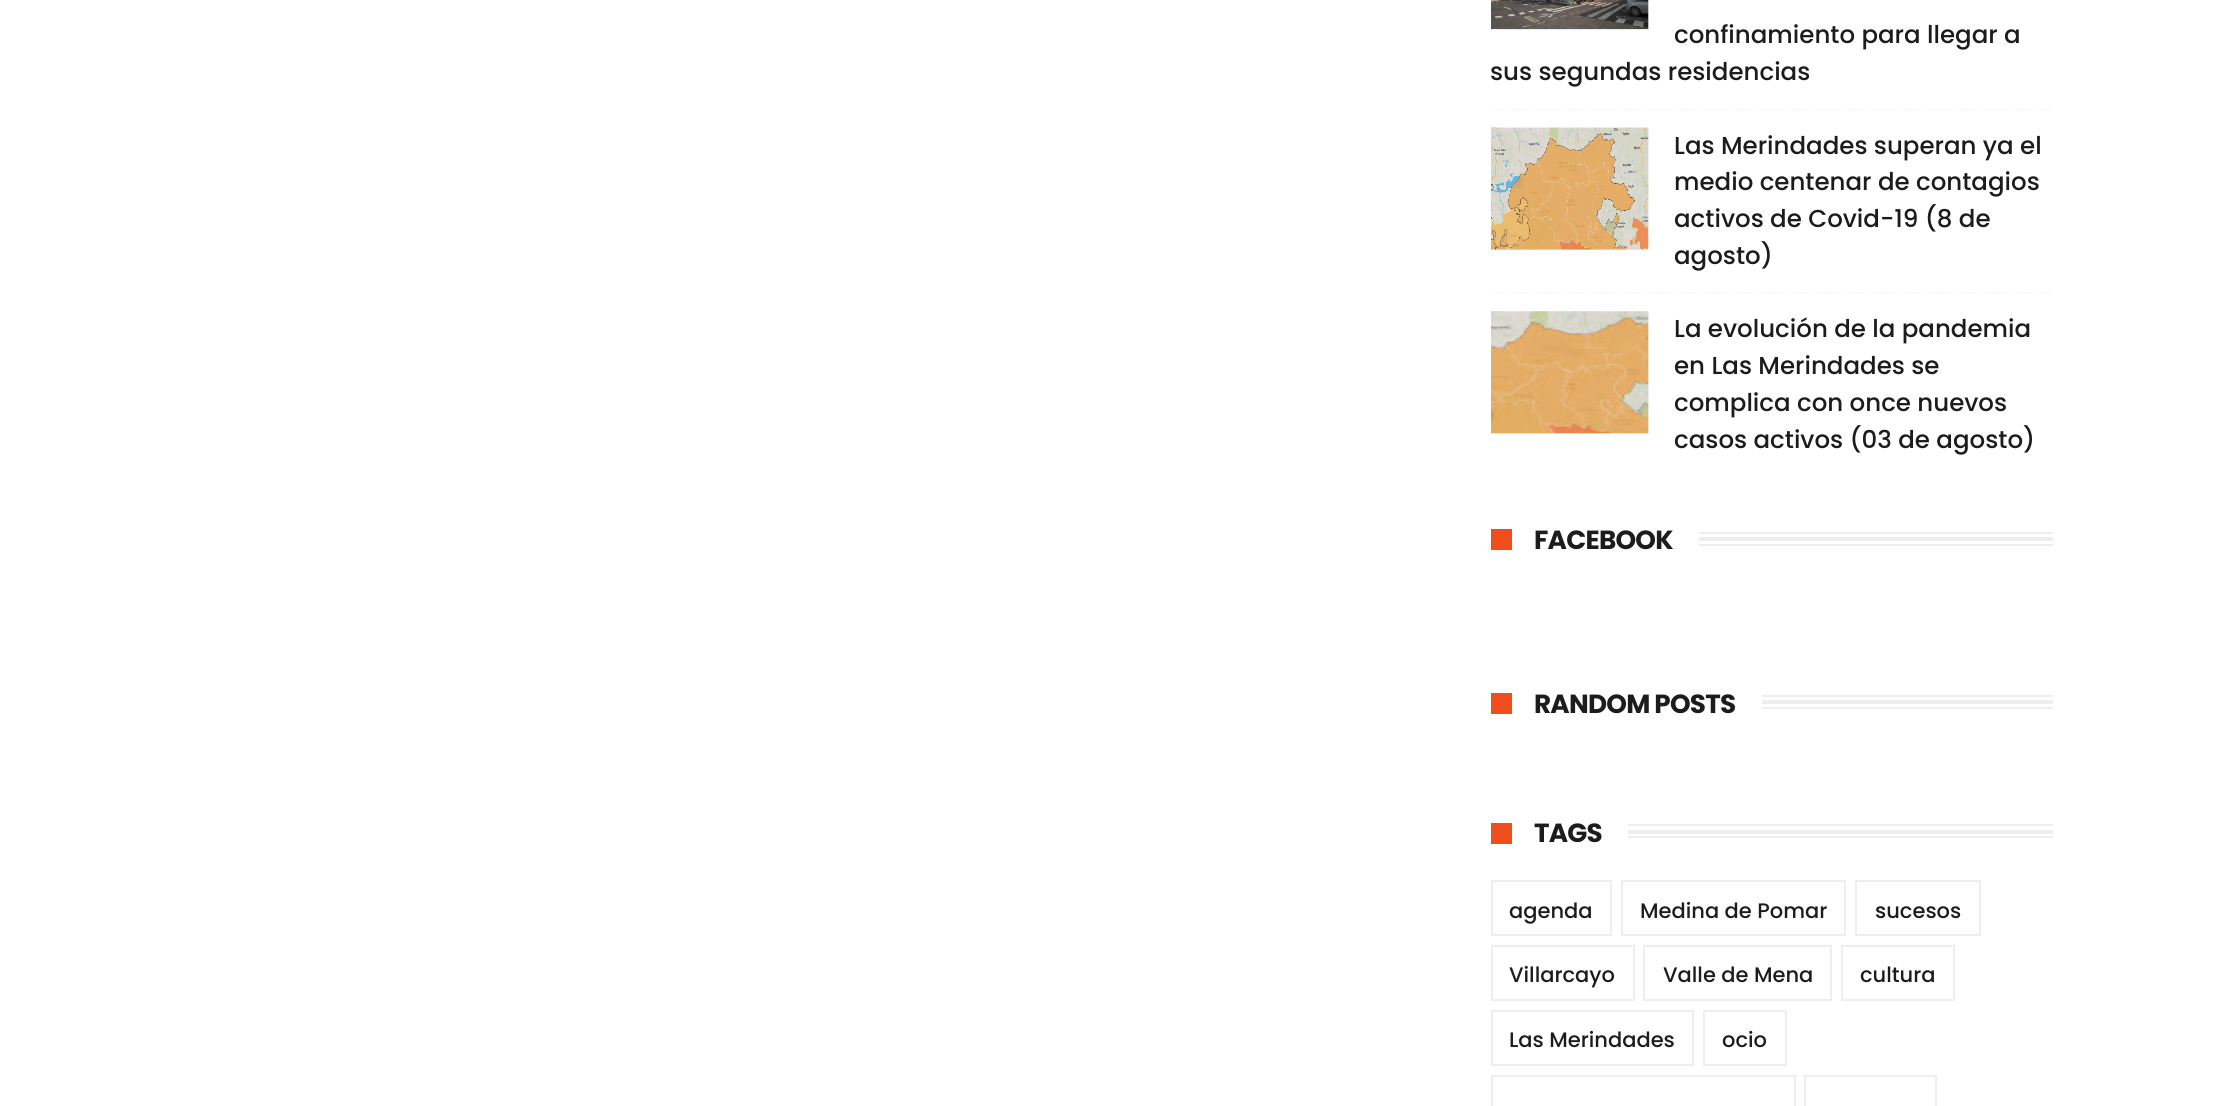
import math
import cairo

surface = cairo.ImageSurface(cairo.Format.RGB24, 2230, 1106)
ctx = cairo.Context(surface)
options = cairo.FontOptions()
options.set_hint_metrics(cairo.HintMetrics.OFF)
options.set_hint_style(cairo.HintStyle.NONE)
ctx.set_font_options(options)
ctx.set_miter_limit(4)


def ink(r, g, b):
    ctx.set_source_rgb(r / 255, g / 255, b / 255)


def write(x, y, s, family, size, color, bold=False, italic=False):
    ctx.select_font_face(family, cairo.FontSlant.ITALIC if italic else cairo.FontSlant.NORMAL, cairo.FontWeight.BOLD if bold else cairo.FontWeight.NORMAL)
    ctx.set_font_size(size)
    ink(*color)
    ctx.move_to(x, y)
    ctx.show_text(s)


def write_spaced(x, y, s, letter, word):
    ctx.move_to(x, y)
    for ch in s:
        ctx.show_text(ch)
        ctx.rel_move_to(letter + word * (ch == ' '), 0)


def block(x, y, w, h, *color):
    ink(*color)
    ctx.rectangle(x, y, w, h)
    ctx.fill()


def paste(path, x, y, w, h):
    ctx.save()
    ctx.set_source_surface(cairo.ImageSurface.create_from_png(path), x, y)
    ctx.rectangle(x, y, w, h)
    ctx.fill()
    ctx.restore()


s1 = dict(family="Poppins Medium", size=24.5, color=(28, 28, 28))
s2 = dict(family="Poppins Medium", size=21, color=(28, 28, 28))

ink(255, 255, 255)
ctx.paint()
block(1491, 312, 158, 122, 244, 244, 244)
block(1491, 128, 158, 122, 244, 244, 244)
block(1491, 0, 158, 30, 244, 244, 244)
paste("pic1.png", 1491, 0, 158, 30)
write(1674, 43, "confinamiento para llegar a", **s1)
write(1490, 80, "sus segundas residencias", **s1)
ctx.new_path()
ctx.move_to(1491, 109.5)
ctx.line_to(2053, 109.5)
ink(245, 245, 245)
ctx.set_line_width(1.8)
ctx.set_dash([1.75, 1.75])
ctx.stroke()
paste("pic2.png", 1491, 127, 158, 123)
write(1674, 154, "Las Merindades superan ya el", **s1)
write(1674, 190, "medio centenar de contagios", **s1)
write(1674, 227, "activos de Covid-19 (8 de", **s1)
write(1674, 264, "agosto)", **s1)
ctx.new_path()
ctx.move_to(1491, 293)
ctx.line_to(2053, 293)
ink(245, 245, 245)
ctx.stroke()
paste("pic3.png", 1491, 311, 158, 123)
write(1674, 337, "La evolución de la pandemia", **s1)
write(1674, 374, "en Las Merindades se", **s1)
write(1674, 411, "complica con once nuevos", **s1)
write(1674, 448, "casos activos (03 de agosto)", **s1)
ctx.save()
ctx.rectangle(1491, 511, 562, 110)
ctx.clip()
ctx.rectangle(1492, 533, 574, 12)
ink(238, 238, 238)
ctx.set_line_width(2)
ctx.set_dash([])
ctx.stroke()
ctx.restore()
block(1491, 532, 208, 14, 255, 255, 255)
block(1491, 529, 21, 21, 239, 77, 28)
ctx.select_font_face("Poppins", cairo.FontSlant.NORMAL, cairo.FontWeight.BOLD)
ctx.set_font_size(26.25)
ink(28, 28, 28)
write_spaced(1534, 549, "FACEBOOK", -0.75, 0)
block(1699, 537, 354, 4, 238, 238, 238)
ctx.save()
ctx.rectangle(1491, 674, 562, 77)
ctx.clip()
ctx.rectangle(1492, 696, 574, 12)
ctx.set_line_width(2)
ctx.set_dash([])
ctx.stroke()
ctx.restore()
block(1491, 695, 271, 14, 255, 255, 255)
block(1491, 693, 21, 21, 239, 77, 28)
ink(28, 28, 28)
write_spaced(1534, 713, "RANDOM POSTS", -0.75, 0)
block(1762, 700, 291, 4, 238, 238, 238)
ctx.save()
ctx.rectangle(1491, 803, 562, 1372)
ctx.clip()
ctx.rectangle(1492, 825, 574, 12)
ctx.set_line_width(2)
ctx.set_dash([])
ctx.stroke()
ctx.restore()
block(1491, 824, 137, 14, 255, 255, 255)
block(1491, 823, 21, 21, 239, 77, 28)
ink(28, 28, 28)
write_spaced(1534, 842, "TAGS", -0.75, 0)
block(1628, 830, 425, 4, 238, 238, 238)
ctx.rectangle(1492, 881, 119, 54)
ctx.set_line_width(2)
ctx.set_dash([])
ctx.stroke()
write(1509, 918, "agenda", **s2)
ctx.rectangle(1622, 881, 223, 54)
ink(238, 238, 238)
ctx.stroke()
write(1640, 918, "Medina de Pomar", **s2)
ctx.rectangle(1856, 881, 124, 54)
ink(238, 238, 238)
ctx.stroke()
write(1875, 918, "sucesos", **s2)
ctx.rectangle(1492, 946, 142, 54)
ink(238, 238, 238)
ctx.stroke()
write(1509, 982, "Villarcayo", **s2)
ctx.rectangle(1644, 946, 187, 54)
ink(238, 238, 238)
ctx.stroke()
write(1663, 982, "Valle de Mena", **s2)
ctx.rectangle(1842, 946, 112, 54)
ink(238, 238, 238)
ctx.stroke()
write(1860, 982, "cultura", **s2)
ctx.rectangle(1492, 1011, 201, 54)
ink(238, 238, 238)
ctx.stroke()
write(1509, 1047, "Las Merindades", **s2)
ctx.rectangle(1704, 1011, 82, 54)
ink(238, 238, 238)
ctx.stroke()
write(1722, 1047, "ocio", **s2)
ctx.rectangle(1492, 1076, 303, 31)
ink(238, 238, 238)
ctx.stroke()
ctx.rectangle(1805, 1076, 131, 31)
ctx.stroke()
surface.write_to_png("screenshot.png")
